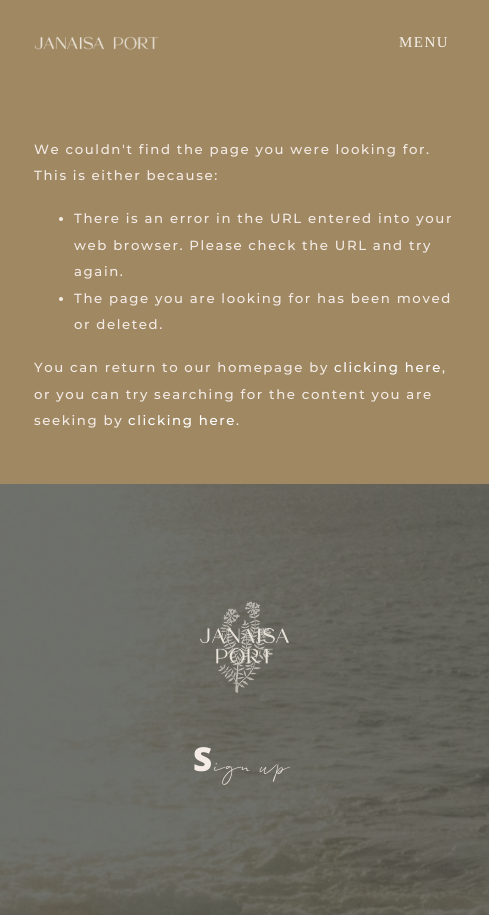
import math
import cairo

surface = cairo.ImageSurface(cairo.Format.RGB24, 489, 915)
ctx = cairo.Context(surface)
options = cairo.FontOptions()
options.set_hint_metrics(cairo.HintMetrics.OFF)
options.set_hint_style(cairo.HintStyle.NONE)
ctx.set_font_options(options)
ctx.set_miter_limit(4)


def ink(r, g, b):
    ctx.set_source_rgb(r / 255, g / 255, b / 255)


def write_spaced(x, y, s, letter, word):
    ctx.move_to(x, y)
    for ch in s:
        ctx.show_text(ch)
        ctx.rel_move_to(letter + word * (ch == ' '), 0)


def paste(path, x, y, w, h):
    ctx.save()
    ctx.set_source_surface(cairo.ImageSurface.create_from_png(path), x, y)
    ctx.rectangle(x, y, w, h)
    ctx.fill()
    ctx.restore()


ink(159, 136, 98)
ctx.paint()
paste("pic1.png", 34, 36, 125, 14)
ctx.select_font_face("Liberation Serif")
ctx.set_font_size(15)
ink(246, 241, 234)
write_spaced(399, 47, "MENU", 1.5, 0)
ctx.select_font_face("Montserrat Medium")
ctx.set_font_size(13.3)
ink(244, 235, 230)
write_spaced(34, 154, "We couldn't find the page you were looking for.", 1.6, 0)
write_spaced(34, 180, "This is either because:", 1.6, 0)
ctx.new_path()
ctx.arc(61, 219, 2, 0, 2 * math.pi)
ctx.fill()
write_spaced(74, 223, "There is an error in the URL entered into your", 1.6, 0)
write_spaced(74, 250, "web browser. Please check the URL and try", 1.6, 0)
write_spaced(74, 276, "again.", 1.6, 0)
ctx.new_path()
ctx.arc(61, 299, 2, 0, 2 * math.pi)
ctx.fill()
write_spaced(74, 303, "The page you are looking for has been moved", 1.6, 0)
write_spaced(74, 329, "or deleted.", 1.6, 0)
write_spaced(34, 372, "You can return to our homepage by", 1.6, 0)
ink(255, 255, 255)
write_spaced(334, 372, "clicking here", 1.6, 0)
ink(244, 235, 230)
write_spaced(442, 372, ",", 1.6, 0)
write_spaced(34, 399, "or you can try searching for the content you are", 1.6, 0)
write_spaced(34, 425, "seeking by", 1.6, 0)
ink(255, 255, 255)
write_spaced(128, 425, "clicking here", 1.6, 0)
ink(244, 235, 230)
write_spaced(236, 425, ".", 1.6, 0)
paste("pic2.png", 0, 484, 489, 431)
paste("pic3.png", 200, 601, 89, 92)
ctx.select_font_face("Noto Sans Black")
ctx.set_font_size(33)
write_spaced(193, 771, "S", 1, 0)
paste("pic4.png", 214, 763, 77, 22)
surface.write_to_png("screenshot.png")
